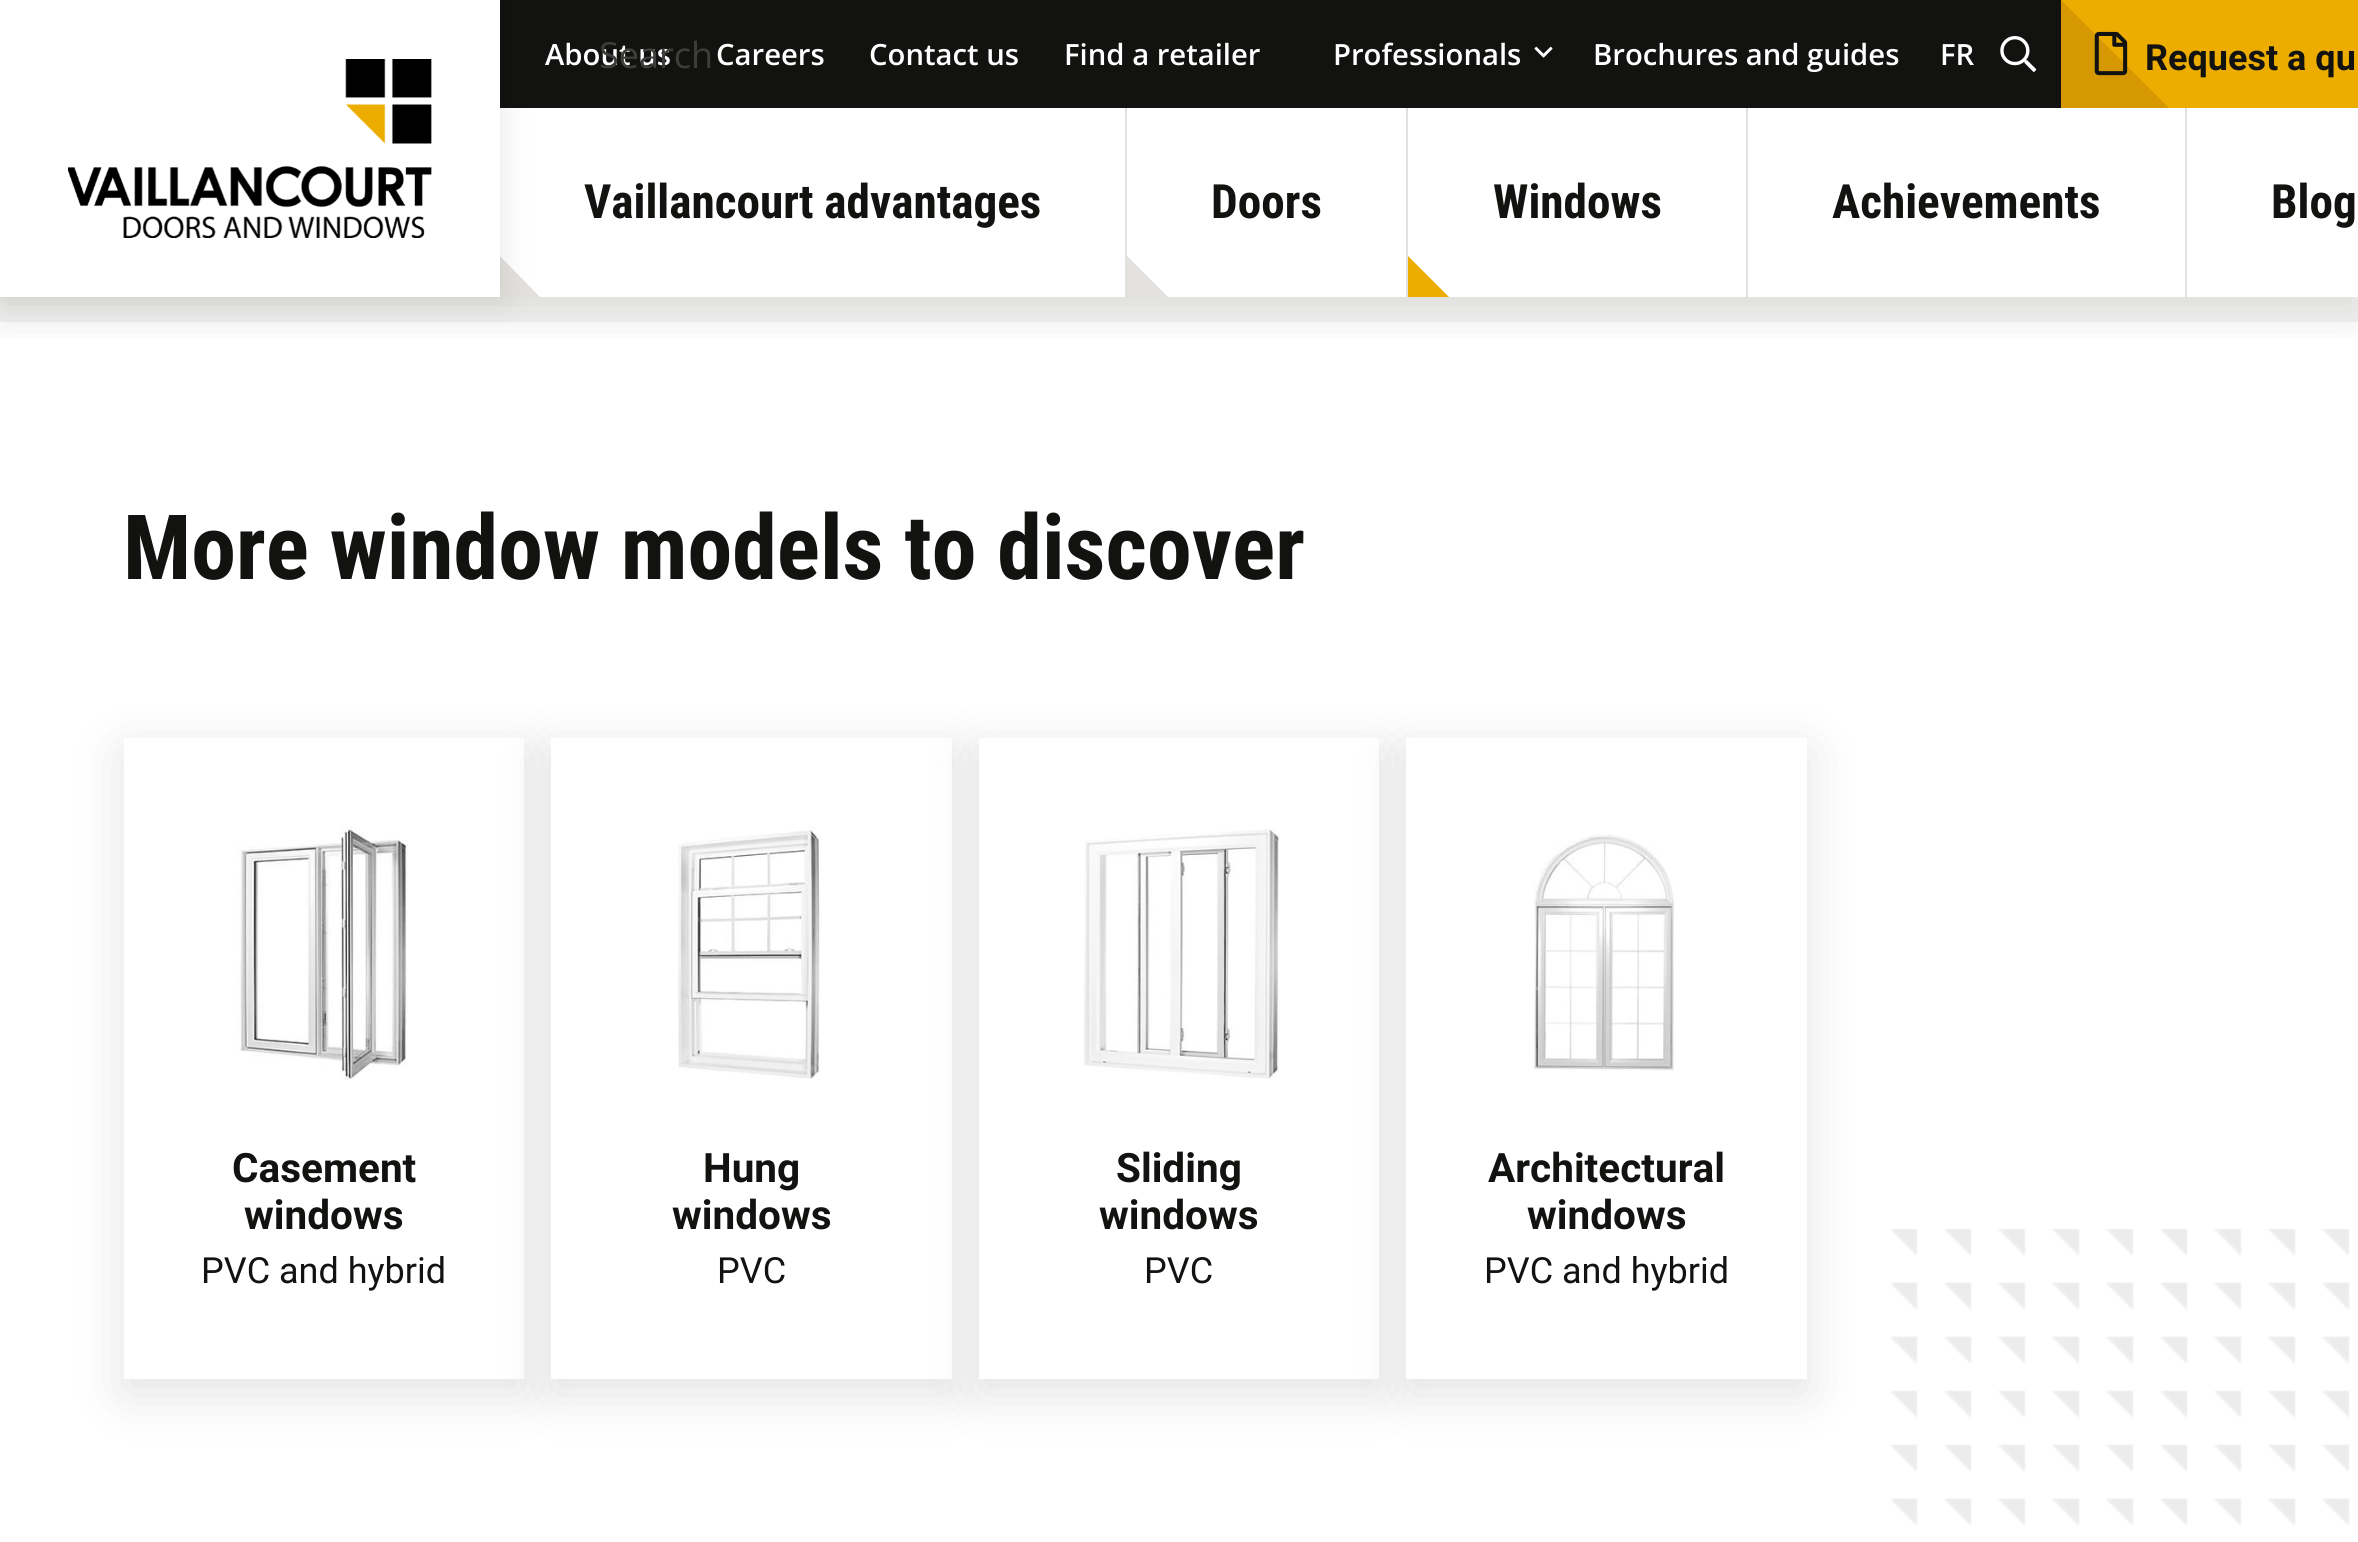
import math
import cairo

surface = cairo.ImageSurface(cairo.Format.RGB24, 2358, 1542)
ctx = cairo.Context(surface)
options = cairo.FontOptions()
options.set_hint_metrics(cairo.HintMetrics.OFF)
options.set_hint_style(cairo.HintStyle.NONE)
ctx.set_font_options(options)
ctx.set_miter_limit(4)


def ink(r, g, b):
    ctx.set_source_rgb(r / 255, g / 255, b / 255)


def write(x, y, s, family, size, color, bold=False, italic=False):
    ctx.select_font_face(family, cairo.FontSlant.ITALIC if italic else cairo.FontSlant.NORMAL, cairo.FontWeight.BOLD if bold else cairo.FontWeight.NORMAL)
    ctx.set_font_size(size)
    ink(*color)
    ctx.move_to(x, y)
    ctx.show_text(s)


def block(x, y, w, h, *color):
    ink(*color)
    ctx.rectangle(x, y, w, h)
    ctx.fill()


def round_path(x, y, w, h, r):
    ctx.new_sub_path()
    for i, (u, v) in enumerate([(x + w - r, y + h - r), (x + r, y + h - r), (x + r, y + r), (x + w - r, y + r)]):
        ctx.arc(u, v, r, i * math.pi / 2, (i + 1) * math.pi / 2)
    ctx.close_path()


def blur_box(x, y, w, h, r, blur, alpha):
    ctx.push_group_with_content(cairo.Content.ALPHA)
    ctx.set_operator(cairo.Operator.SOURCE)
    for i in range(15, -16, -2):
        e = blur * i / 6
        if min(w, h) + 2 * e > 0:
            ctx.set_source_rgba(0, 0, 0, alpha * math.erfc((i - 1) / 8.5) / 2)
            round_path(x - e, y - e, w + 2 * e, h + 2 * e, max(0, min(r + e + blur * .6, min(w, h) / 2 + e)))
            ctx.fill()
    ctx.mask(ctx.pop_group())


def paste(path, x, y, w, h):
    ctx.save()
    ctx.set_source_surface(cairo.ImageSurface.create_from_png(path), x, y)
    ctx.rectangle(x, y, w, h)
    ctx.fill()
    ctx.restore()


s1 = dict(family="Open Sans SemiBold", size=29.25, color=(255, 255, 255))
s2 = dict(family="Open Sans", size=36, color=(61, 61, 60))
s3 = dict(family="Roboto", size=36, color=(18, 18, 16), bold=True)
s4 = dict(family="Roboto Condensed", size=47.25, color=(18, 18, 16), bold=True)
s5 = dict(family="Roboto Condensed", size=90, color=(18, 18, 16), bold=True)
s6 = dict(family="Roboto", size=40.5, color=(18, 18, 16), bold=True)
s7 = dict(family="Roboto", size=36, color=(18, 18, 16))

ink(244, 244, 243)
ctx.paint()
block(500, 0, 1561, 108, 18, 18, 16)
block(0, 322, 2358, 1220, 255, 255, 255)
ctx.save()
ctx.rectangle(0, 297, 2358, 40)
ctx.clip()
ink(18, 18, 16)
blur_box(0, 14, 2358, 297, 0, 27, 0.12)
ctx.restore()
block(500, 108, 1858, 189, 255, 255, 255)
ink(226, 225, 221)
ctx.new_path()
ctx.move_to(540, 297)
ctx.line_to(500, 297)
ctx.line_to(500, 256)
ctx.close_path()
ctx.fill()
ink(0, 0, 0)
blur_box(0, 0, 500, 297, 0, 17, 0.1)
block(0, 0, 500, 297, 255, 255, 255)
paste("pic1.png", 68, 59, 364, 179)
write(545, 65, "About us", **s1)
write(599, 68, "Search", **s2)
write(716, 65, "Careers", **s1)
write(869, 65, "Contact us", **s1)
write(1064, 65, "Find a retailer", **s1)
write(1333, 65, "Professionals", **s1)
paste("pic2.png", 1534, 46, 19, 12)
write(1593, 65, "Brochures and guides", **s1)
write(1940, 65, "FR", **s1)
paste("pic3.png", 2000, 36, 37, 36)
block(2061, 0, 297, 108, 236, 172, 0)
write(2145, 70, "Request a qu", **s3)
ink(213, 152, 0)
ctx.new_path()
ctx.move_to(2169, 108)
ctx.line_to(2061, 108)
ctx.line_to(2061, 0)
ctx.close_path()
ctx.fill()
paste("pic4.png", 2094, 31, 34, 45)
write(584, 218, "Vaillancourt advantages", **s4)
block(1125, 108, 2, 189, 226, 225, 221)
write(1211, 218, "Doors", **s4)
ink(226, 225, 221)
ctx.new_path()
ctx.move_to(1168, 297)
ctx.line_to(1127, 297)
ctx.line_to(1127, 256)
ctx.close_path()
ctx.fill()
block(1406, 108, 2, 189, 226, 225, 221)
write(1493, 218, "Windows", **s4)
ink(236, 172, 0)
ctx.new_path()
ctx.move_to(1449, 297)
ctx.line_to(1408, 297)
ctx.line_to(1408, 256)
ctx.close_path()
ctx.fill()
block(1746, 108, 2, 189, 226, 225, 221)
write(1832, 218, "Achievements", **s4)
block(2185, 108, 2, 189, 226, 225, 221)
write(2271, 218, "Blog", **s4)
write(123, 579, "More window models to discover", **s5)
ctx.save()
ctx.set_fill_rule(cairo.FillRule.EVEN_ODD)
ctx.new_path()
ctx.move_to(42, 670)
ctx.line_to(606, 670)
ctx.line_to(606, 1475)
ctx.line_to(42, 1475)
ctx.close_path()
ctx.move_to(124, 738)
ctx.line_to(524, 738)
ctx.line_to(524, 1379)
ctx.line_to(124, 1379)
ctx.close_path()
ctx.clip()
ink(18, 18, 16)
blur_box(124, 752, 400, 641, 0, 27, 0.12)
ctx.restore()
paste("pic5.png", 237, 826, 171, 253)
write(232, 1182, "Casement", **s6)
write(244, 1229, "windows", **s6)
write(201, 1283, "PVC and hybrid", **s7)
ink(18, 18, 16)
blur_box(551, 752, 401, 641, 0, 27, 0.12)
block(551, 738, 401, 641, 255, 255, 255)
paste("pic6.png", 678, 826, 143, 253)
write(703, 1182, "Hung", **s6)
write(672, 1229, "windows", **s6)
write(717, 1283, "PVC", **s7)
ink(18, 18, 16)
blur_box(979, 752, 400, 641, 0, 27, 0.12)
block(979, 738, 400, 641, 255, 255, 255)
paste("pic7.png", 1084, 829, 196, 250)
write(1116, 1182, "Sliding", **s6)
write(1099, 1229, "windows", **s6)
write(1144, 1283, "PVC", **s7)
ink(18, 18, 16)
blur_box(1406, 752, 401, 641, 0, 27, 0.12)
block(1406, 738, 401, 641, 255, 255, 255)
paste("pic8.png", 1533, 834, 143, 237)
write(1488, 1182, "Architectural", **s6)
write(1527, 1229, "windows", **s6)
write(1484, 1283, "PVC and hybrid", **s7)
paste("pic9.png", 1891, 1229, 459, 296)
surface.write_to_png("screenshot.png")
